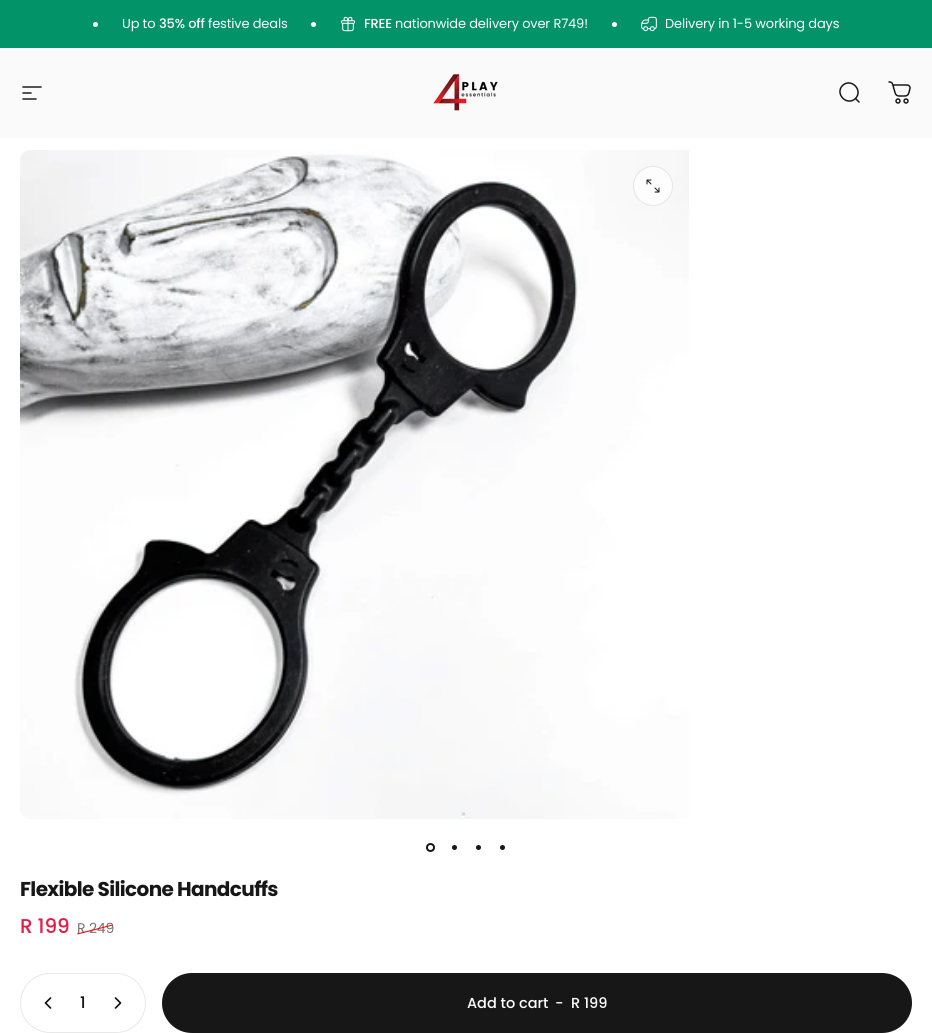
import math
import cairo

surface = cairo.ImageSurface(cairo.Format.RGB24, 932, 1033)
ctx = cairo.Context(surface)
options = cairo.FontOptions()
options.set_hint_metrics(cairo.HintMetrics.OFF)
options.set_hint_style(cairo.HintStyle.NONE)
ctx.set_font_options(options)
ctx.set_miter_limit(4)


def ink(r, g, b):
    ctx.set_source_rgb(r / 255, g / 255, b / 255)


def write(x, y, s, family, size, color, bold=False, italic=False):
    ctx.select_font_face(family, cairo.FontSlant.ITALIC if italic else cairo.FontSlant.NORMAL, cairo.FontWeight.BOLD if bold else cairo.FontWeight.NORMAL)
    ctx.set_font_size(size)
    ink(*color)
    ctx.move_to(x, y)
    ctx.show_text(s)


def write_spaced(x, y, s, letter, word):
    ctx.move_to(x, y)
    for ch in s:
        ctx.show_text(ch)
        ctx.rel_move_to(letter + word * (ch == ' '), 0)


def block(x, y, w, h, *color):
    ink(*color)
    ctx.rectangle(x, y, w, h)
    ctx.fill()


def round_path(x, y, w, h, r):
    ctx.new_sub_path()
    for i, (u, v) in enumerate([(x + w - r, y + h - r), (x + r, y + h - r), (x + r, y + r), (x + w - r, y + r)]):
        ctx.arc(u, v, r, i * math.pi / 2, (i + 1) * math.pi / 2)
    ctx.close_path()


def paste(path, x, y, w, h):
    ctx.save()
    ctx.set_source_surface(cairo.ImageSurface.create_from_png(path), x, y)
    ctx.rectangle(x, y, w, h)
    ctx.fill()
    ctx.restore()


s1 = dict(family="Poppins Medium", size=16, color=(23, 23, 23))
s2 = dict(family="Poppins Medium", size=14.5, color=(255, 255, 255))

ink(255, 255, 255)
ctx.paint()
block(0, 0, 932, 48, 3, 147, 105)
ink(255, 255, 255)
ctx.arc(95.5, 24.5, 2, 0, 2 * math.pi)
ctx.fill_preserve()
ctx.set_line_width(1)
ctx.stroke()
ctx.select_font_face("Poppins")
ctx.set_font_size(13)
write_spaced(122, 28, "Up to", -0.15, 0)
ctx.select_font_face("Poppins Medium")
write_spaced(159, 28, "35% off", -0.15, 0)
ctx.select_font_face("Poppins")
write_spaced(208, 28, "festive deals", -0.15, 0)
ctx.new_path()
ctx.arc(313.5, 24.5, 2, 0, 2 * math.pi)
ctx.fill_preserve()
ctx.stroke()
paste("pic1.png", 340, 16, 16, 16)
ctx.select_font_face("Poppins Medium")
write_spaced(364, 28, "FREE", -0.15, 0)
ctx.select_font_face("Poppins")
write_spaced(395, 28, "nationwide delivery over R749!", -0.15, 0)
ctx.new_path()
ctx.arc(614.5, 24.5, 2, 0, 2 * math.pi)
ctx.fill_preserve()
ctx.stroke()
paste("pic2.png", 641, 16, 16, 16)
write_spaced(665, 28, "Delivery in 1-5 working days", -0.15, 0)
block(0, 48, 932, 90, 250, 250, 250)
ctx.new_path()
ctx.move_to(23, 87)
ctx.line_to(41, 87)
ctx.move_to(23, 93)
ctx.line_to(31, 93)
ctx.move_to(23, 99)
ctx.line_to(36, 99)
ink(23, 23, 23)
ctx.set_line_width(1.5)
ctx.set_line_cap(cairo.LineCap.ROUND)
ctx.stroke()
paste("pic3.png", 433, 74, 65, 37)
ctx.new_path()
ctx.move_to(859, 102)
ctx.line_to(855.5, 98.5)
ctx.move_to(855.5, 98.5)
ctx.curve_to(863.5, 90, 851, 77.5, 842.5, 85.5)
ctx.curve_to(834.5, 94, 847, 106.5, 855.5, 98.5)
ctx.close_path()
ctx.stroke()
paste("pic4.png", 888, 81, 23, 23)
ink(250, 250, 250)
ctx.new_path()
ctx.move_to(30, 150)
ctx.line_to(689, 150)
ctx.line_to(689, 819)
ctx.line_to(30, 819)
ctx.curve_to(24.5, 819, 20, 814.5, 20, 809)
ctx.line_to(20, 160)
ctx.curve_to(20, 154.5, 24.5, 150, 30, 150)
ctx.close_path()
ctx.fill()
paste("pic5.png", 20, 150, 669, 669)
ink(253, 253, 253)
ctx.arc(653, 186, 20, 0, 2 * math.pi)
ctx.fill()
ctx.arc(653, 186, 19.5, 0, 2 * math.pi)
ctx.set_source_rgba(0.09, 0.09, 0.09, 0.1)
ctx.set_line_width(1)
ctx.set_line_cap(cairo.LineCap.BUTT)
ctx.stroke()
paste("pic6.png", 646, 179, 14, 14)
ctx.arc(430.5, 847.5, 3.5, 0, 2 * math.pi)
ink(23, 23, 23)
ctx.set_line_width(2)
ctx.stroke()
ctx.arc(454.5, 847.5, 2.5, 0, 2 * math.pi)
ctx.fill()
ctx.arc(478.5, 847.5, 2.5, 0, 2 * math.pi)
ctx.fill()
ctx.arc(502.5, 847.5, 2.5, 0, 2 * math.pi)
ctx.fill()
ctx.select_font_face("Poppins", cairo.FontSlant.NORMAL, cairo.FontWeight.BOLD)
ctx.set_font_size(20)
write_spaced(20, 896, "Flexible Silicone Handcuffs", -0.6, 0)
ctx.select_font_face("Poppins Medium")
ink(225, 29, 72)
write_spaced(20, 933, "R 199", -0.15, 0)
ctx.select_font_face("Poppins")
ctx.set_font_size(14)
ink(116, 116, 116)
write_spaced(77, 933, "R 249", -0.15, 0)
ink(255, 0, 0)
ctx.new_path()
ctx.move_to(77, 933.5)
ctx.line_to(112.5, 924.5)
ctx.line_to(112.5, 925.5)
ctx.line_to(77.5, 934.5)
ctx.close_path()
ctx.fill()
round_path(20.5, 973.5, 125, 59, 29.5)
ink(232, 232, 232)
ctx.set_line_width(1)
ctx.stroke()
ctx.new_path()
ctx.move_to(50.5, 998)
ctx.line_to(45.5, 1003)
ctx.line_to(50.5, 1008)
ink(23, 23, 23)
ctx.set_line_width(1.7)
ctx.set_line_cap(cairo.LineCap.ROUND)
ctx.set_line_join(cairo.LineJoin.ROUND)
ctx.stroke()
write(80, 1008, "1", **s1)
ctx.new_path()
ctx.move_to(115.5, 998)
ctx.line_to(120.5, 1003)
ctx.line_to(115.5, 1008)
ctx.stroke()
round_path(163, 974, 748, 58, 29)
ctx.fill_preserve()
ctx.set_line_width(2)
ctx.set_line_cap(cairo.LineCap.BUTT)
ctx.set_line_join(cairo.LineJoin.MITER)
ctx.stroke()
write(467, 1008, "Add to cart", **s2)
write(555, 1008, "-", **s2)
write(571, 1008, "R 199", **s2)
surface.write_to_png("screenshot.png")
